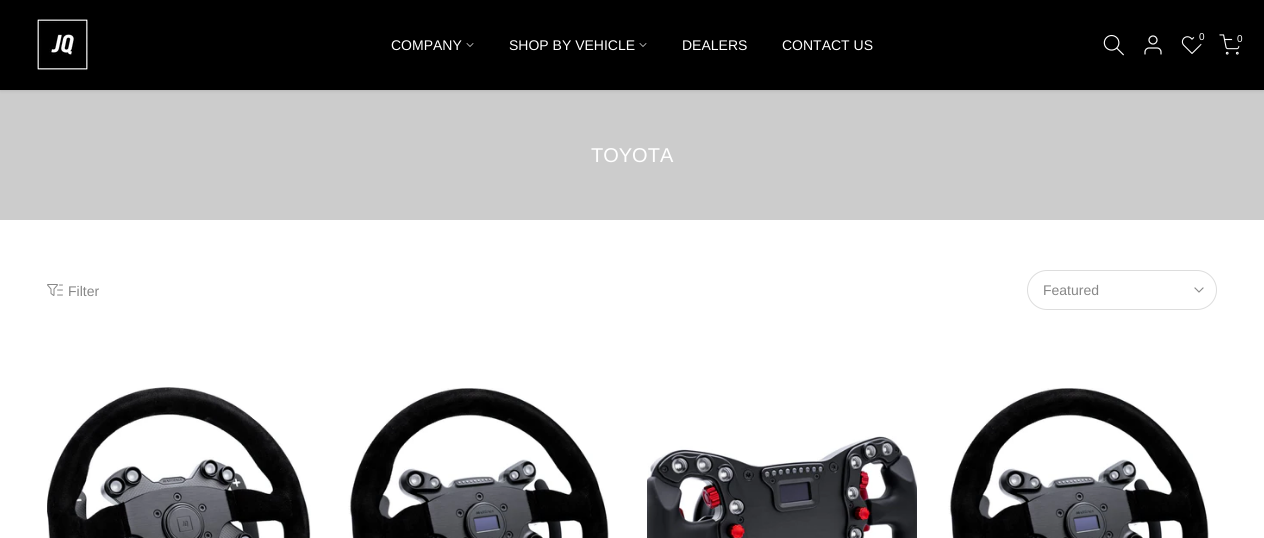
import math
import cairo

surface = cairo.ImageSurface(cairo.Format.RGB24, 1264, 538)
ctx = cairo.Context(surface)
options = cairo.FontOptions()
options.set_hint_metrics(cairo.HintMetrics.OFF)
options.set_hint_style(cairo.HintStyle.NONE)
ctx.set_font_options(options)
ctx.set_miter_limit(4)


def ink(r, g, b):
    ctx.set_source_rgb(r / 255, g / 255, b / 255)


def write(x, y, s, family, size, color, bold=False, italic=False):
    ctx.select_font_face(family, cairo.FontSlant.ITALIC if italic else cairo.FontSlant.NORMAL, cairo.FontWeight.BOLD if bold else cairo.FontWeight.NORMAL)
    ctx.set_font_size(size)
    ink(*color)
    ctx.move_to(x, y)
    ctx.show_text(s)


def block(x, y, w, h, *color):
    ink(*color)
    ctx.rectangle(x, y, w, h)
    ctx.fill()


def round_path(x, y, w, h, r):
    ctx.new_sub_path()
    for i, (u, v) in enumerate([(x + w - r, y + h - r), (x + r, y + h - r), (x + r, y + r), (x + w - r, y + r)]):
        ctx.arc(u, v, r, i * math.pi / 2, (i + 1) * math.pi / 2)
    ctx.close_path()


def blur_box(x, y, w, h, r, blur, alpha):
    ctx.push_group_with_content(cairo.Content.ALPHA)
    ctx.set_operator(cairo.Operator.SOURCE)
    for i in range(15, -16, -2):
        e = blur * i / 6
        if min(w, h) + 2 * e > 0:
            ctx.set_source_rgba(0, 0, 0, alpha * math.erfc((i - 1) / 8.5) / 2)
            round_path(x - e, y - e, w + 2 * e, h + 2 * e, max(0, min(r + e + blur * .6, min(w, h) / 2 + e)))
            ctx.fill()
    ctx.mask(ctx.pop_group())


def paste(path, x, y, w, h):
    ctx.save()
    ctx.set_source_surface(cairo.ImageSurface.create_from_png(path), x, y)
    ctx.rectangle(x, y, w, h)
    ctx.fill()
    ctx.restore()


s1 = dict(family="Liberation Sans", size=10, color=(255, 255, 255))
s2 = dict(family="Liberation Sans", size=14, color=(255, 255, 255))
s3 = dict(family="Liberation Sans", size=20, color=(255, 255, 255))
s4 = dict(family="Liberation Sans", size=14, color=(135, 135, 135))

ink(255, 255, 255)
ctx.paint()
block(0, 90, 1264, 130, 204, 204, 204)
ink(0, 0, 0)
blur_box(0, 1, 1264, 90, 0, 1.5, 0.1)
block(0, 0, 1264, 90, 0, 0, 0)
paste("pic1.png", 37, 19, 51, 52)
paste("pic2.png", 1103, 34, 21, 22)
paste("pic3.png", 1144, 35, 18, 20)
paste("pic4.png", 1181, 36, 21, 18)
ink(0, 0, 0)
blur_box(1195, 30, 15, 15, 7.5, 1.5, 0.3)
ink(0, 0, 0)
ctx.arc(1201.5, 36.5, 7.5, 0, 2 * math.pi)
ctx.fill()
write(1199, 40, "0", **s1)
paste("pic5.png", 1219, 34, 21, 21)
ink(0, 0, 0)
blur_box(1233, 32, 15, 15, 7.5, 1.5, 0.3)
ink(0, 0, 0)
ctx.arc(1239.5, 38.5, 7.5, 0, 2 * math.pi)
ctx.fill()
write(1237, 42, "0", **s1)
write(391, 50, "COMPANY", **s2)
ctx.new_path()
ctx.move_to(473, 43.5)
ctx.line_to(470, 46.5)
ctx.line_to(467, 43.5)
ink(204, 204, 204)
ctx.set_line_width(0.8)
ctx.set_line_cap(cairo.LineCap.SQUARE)
ctx.stroke()
write(509, 50, "SHOP BY VEHICLE", **s2)
ctx.new_path()
ctx.move_to(646, 43.5)
ctx.line_to(643, 46.5)
ctx.line_to(640, 43.5)
ink(204, 204, 204)
ctx.stroke()
write(682, 50, "DEALERS", **s2)
write(782, 50, "CONTACT US", **s2)
write(591, 162, "TOYOTA", **s3)
paste("pic6.png", 47, 284, 16, 12)
write(68, 296, "Filter", **s4)
round_path(1027.5, 270.5, 189, 39, 19.5)
ink(221, 221, 221)
ctx.set_line_width(1)
ctx.set_line_cap(cairo.LineCap.BUTT)
ctx.stroke()
write(1043, 295, "Featured", **s4)
ctx.new_path()
ctx.move_to(1203, 288)
ctx.line_to(1199, 292)
ctx.line_to(1195, 288)
ctx.set_line_width(1.1)
ctx.set_line_cap(cairo.LineCap.SQUARE)
ctx.stroke()
paste("pic7.png", 47, 387, 264, 151)
ink(255, 255, 255)
ctx.arc(272, 395, 30, 0, 2 * math.pi)
ctx.fill()
paste("pic8.png", 348, 388, 261, 150)
ctx.arc(572, 395, 30, 0, 2 * math.pi)
ctx.fill()
paste("pic9.png", 647, 436, 270, 102)
paste("pic10.png", 948, 388, 261, 150)
ctx.arc(1172, 395, 30, 0, 2 * math.pi)
ctx.fill()
surface.write_to_png("screenshot.png")
